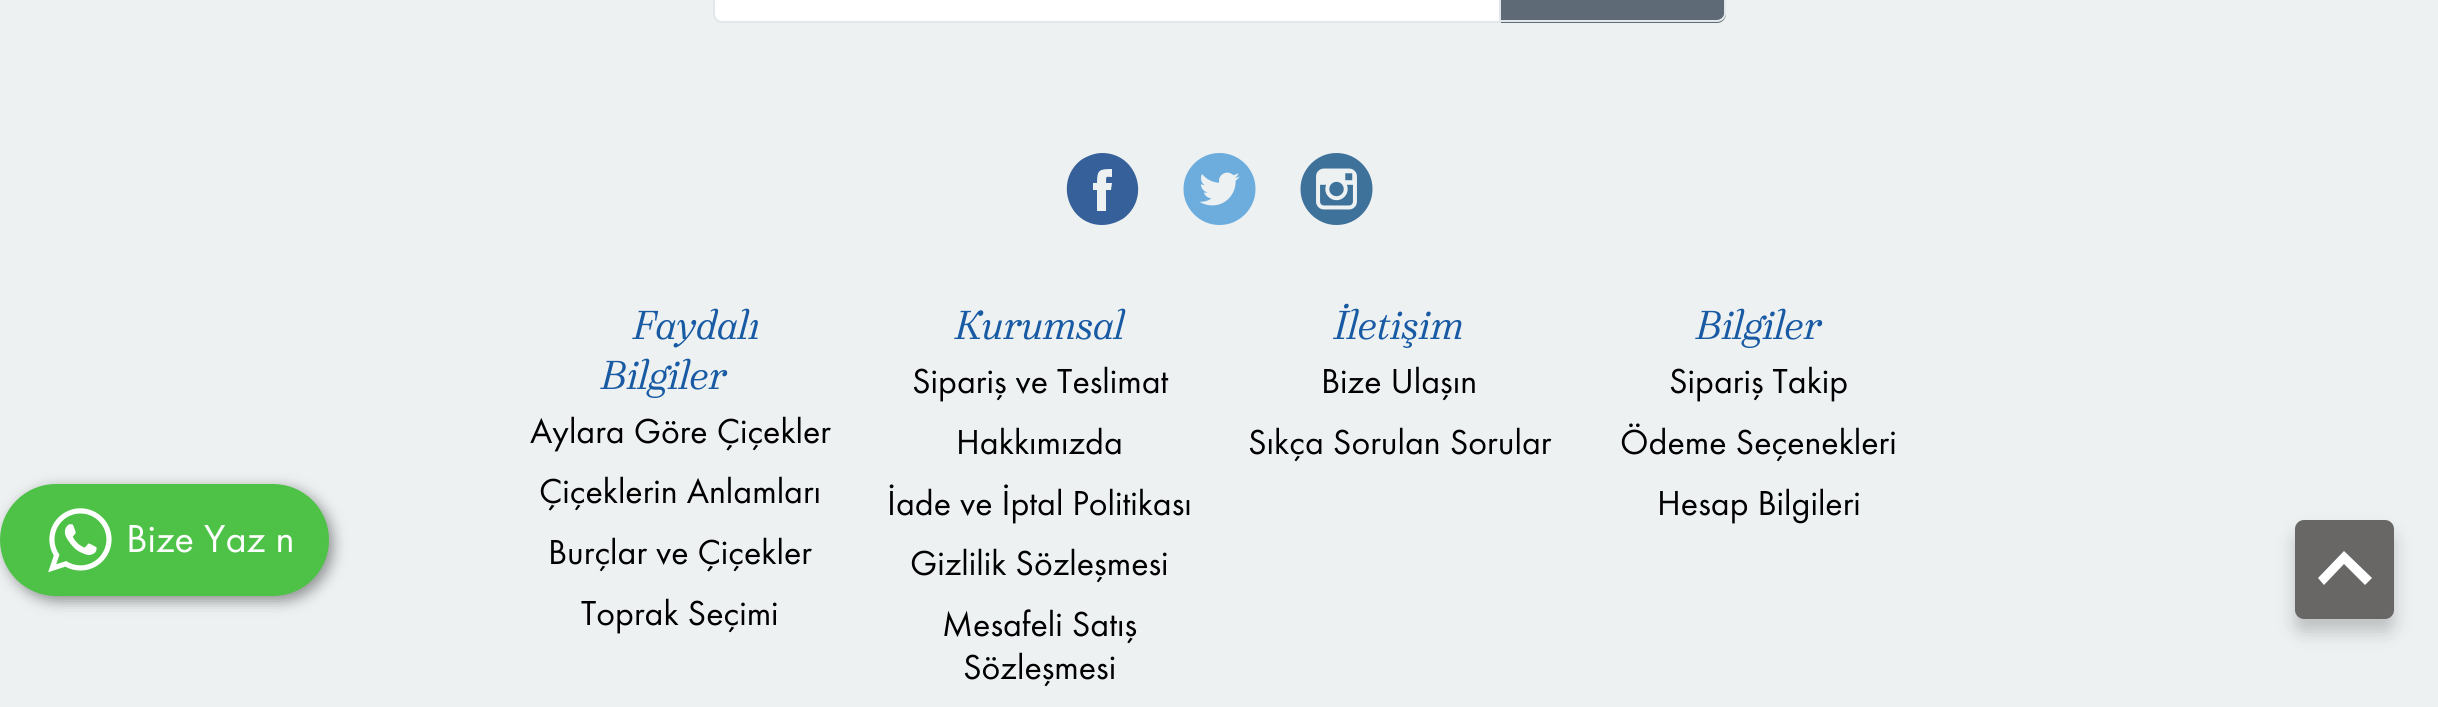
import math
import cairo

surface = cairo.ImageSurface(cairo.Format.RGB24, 2438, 707)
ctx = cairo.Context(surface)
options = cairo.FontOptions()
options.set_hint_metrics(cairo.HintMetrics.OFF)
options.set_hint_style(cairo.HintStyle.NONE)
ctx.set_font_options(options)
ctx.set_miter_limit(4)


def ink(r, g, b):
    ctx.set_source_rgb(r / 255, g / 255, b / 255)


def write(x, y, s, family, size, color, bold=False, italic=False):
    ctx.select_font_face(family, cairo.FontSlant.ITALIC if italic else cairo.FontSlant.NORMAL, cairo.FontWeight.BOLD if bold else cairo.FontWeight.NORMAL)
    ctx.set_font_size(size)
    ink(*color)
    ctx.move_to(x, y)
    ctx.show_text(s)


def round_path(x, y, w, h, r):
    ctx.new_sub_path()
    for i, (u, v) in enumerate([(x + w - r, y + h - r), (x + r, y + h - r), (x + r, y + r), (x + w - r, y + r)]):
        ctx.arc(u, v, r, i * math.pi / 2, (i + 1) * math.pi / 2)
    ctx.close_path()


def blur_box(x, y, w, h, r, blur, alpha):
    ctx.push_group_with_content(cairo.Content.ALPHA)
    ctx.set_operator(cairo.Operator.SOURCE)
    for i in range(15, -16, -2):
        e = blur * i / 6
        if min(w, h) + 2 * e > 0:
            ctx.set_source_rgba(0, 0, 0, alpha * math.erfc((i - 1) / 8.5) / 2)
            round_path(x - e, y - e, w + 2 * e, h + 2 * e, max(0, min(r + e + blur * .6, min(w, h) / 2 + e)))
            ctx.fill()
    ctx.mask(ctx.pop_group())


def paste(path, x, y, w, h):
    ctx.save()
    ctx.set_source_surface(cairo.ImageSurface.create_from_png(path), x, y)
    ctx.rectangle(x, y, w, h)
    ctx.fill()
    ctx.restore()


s1 = dict(family="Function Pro", size=40.5, color=(255, 255, 255))
s2 = dict(family="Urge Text", size=40.5, color=(24, 90, 163), italic=True)
s3 = dict(family="Function Pro", size=36, color=(0, 0, 0))

ink(237, 241, 242)
ctx.paint()
ink(0, 0, 0)
blur_box(5, 488, 328, 113, 56.5, 7, 0.4)
ink(77, 194, 71)
round_path(0, 484, 329, 112, 56)
ctx.fill()
paste("pic1.png", 48, 508, 64, 65)
write(126, 552, "Bize Yaz n", **s1)
ctx.new_path()
ctx.move_to(722, -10)
ctx.line_to(1500, -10)
ctx.line_to(1500, 22)
ctx.line_to(722, 22)
ctx.curve_to(717.5, 22, 714, 18.5, 714, 14)
ctx.line_to(714, -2)
ctx.curve_to(714, -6.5, 717.5, -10, 722, -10)
ctx.close_path()
ctx.fill_preserve()
ink(226, 231, 233)
ctx.stroke()
ink(94, 106, 118)
ctx.new_path()
ctx.move_to(1501, -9)
ctx.line_to(1717, -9)
ctx.curve_to(1722, -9, 1726, -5, 1726, 0)
ctx.line_to(1726, 14)
ctx.curve_to(1726, 19, 1722, 23, 1717, 23)
ctx.line_to(1501, 23)
ctx.close_path()
ctx.fill()
ink(226, 231, 233)
ctx.set_fill_rule(cairo.FillRule.EVEN_ODD)
ctx.new_path()
ctx.move_to(1501, -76)
ctx.line_to(1717, -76)
ctx.curve_to(1722, -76, 1726, -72, 1726, -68)
ctx.line_to(1726, 14)
ctx.curve_to(1726, 18, 1722, 22, 1717, 22)
ctx.line_to(1501, 22)
ctx.close_path()
ctx.move_to(1501, -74)
ctx.line_to(1717, -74)
ctx.curve_to(1720, -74, 1724, -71, 1724, -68)
ctx.line_to(1724, 14)
ctx.curve_to(1724, 17, 1720, 20, 1717, 20)
ctx.line_to(1501, 20)
ctx.close_path()
ctx.fill()
ink(54, 96, 153)
ctx.set_fill_rule(cairo.FillRule.WINDING)
ctx.new_path()
ctx.move_to(1102, 153)
ctx.curve_to(1095, 153, 1087, 156, 1081, 160)
ctx.curve_to(1054, 181, 1068, 225, 1102, 225)
ctx.curve_to(1110, 225, 1118, 222, 1124, 218)
ctx.curve_to(1151, 197, 1137, 153, 1102, 153)
ctx.close_path()
ctx.move_to(1111, 190)
ctx.line_to(1106, 190)
ctx.line_to(1106, 211)
ctx.line_to(1097, 211)
ctx.line_to(1097, 190)
ctx.line_to(1093, 190)
ctx.line_to(1093, 183)
ctx.line_to(1097, 183)
ctx.curve_to(1097, 170, 1099, 169, 1112, 169)
ctx.line_to(1112, 177)
ctx.curve_to(1106, 177, 1106, 175, 1106, 183)
ctx.line_to(1112, 183)
ctx.close_path()
ctx.fill()
paste("pic2.png", 1183, 153, 73, 72)
paste("pic3.png", 1300, 153, 73, 72)
write(633, 339, "Faydalı", **s2)
write(601, 389, "Bilgiler", **s2)
write(530, 443, "Aylara Göre Çiçekler", **s3)
write(539, 503, "Çiçeklerin Anlamları", **s3)
write(548, 564, "Burçlar ve Çiçekler", **s3)
write(581, 625, "Toprak Seçimi", **s3)
write(955, 339, "Kurumsal", **s2)
write(912, 393, "Sipariş ve Teslimat", **s3)
write(956, 454, "Hakkımızda", **s3)
write(887, 515, "İade ve İptal Politikası", **s3)
write(910, 575, "Gizlilik Sözleşmesi", **s3)
write(942, 636, "Mesafeli Satış", **s3)
write(963, 679, "Sözleşmesi", **s3)
write(1334, 339, "İletişim", **s2)
write(1321, 393, "Bize Ulaşın", **s3)
write(1248, 454, "Sıkça Sorulan Sorular", **s3)
write(1696, 339, "Bilgiler", **s2)
write(1669, 393, "Sipariş Takip", **s3)
write(1620, 454, "Ödeme Seçenekleri", **s3)
write(1657, 515, "Hesap Bilgileri", **s3)
ink(0, 0, 0)
blur_box(2295, 533, 99, 99, 9, 9, 0.2)
ink(105, 102, 102)
round_path(2295, 520, 99, 99, 9)
ctx.fill()
ink(255, 255, 255)
ctx.new_path()
ctx.move_to(2318, 578)
ctx.line_to(2324, 585)
ctx.line_to(2344, 564)
ctx.line_to(2365, 585)
ctx.line_to(2372, 578)
ctx.line_to(2344, 551)
ctx.close_path()
ctx.fill()
surface.write_to_png("screenshot.png")
